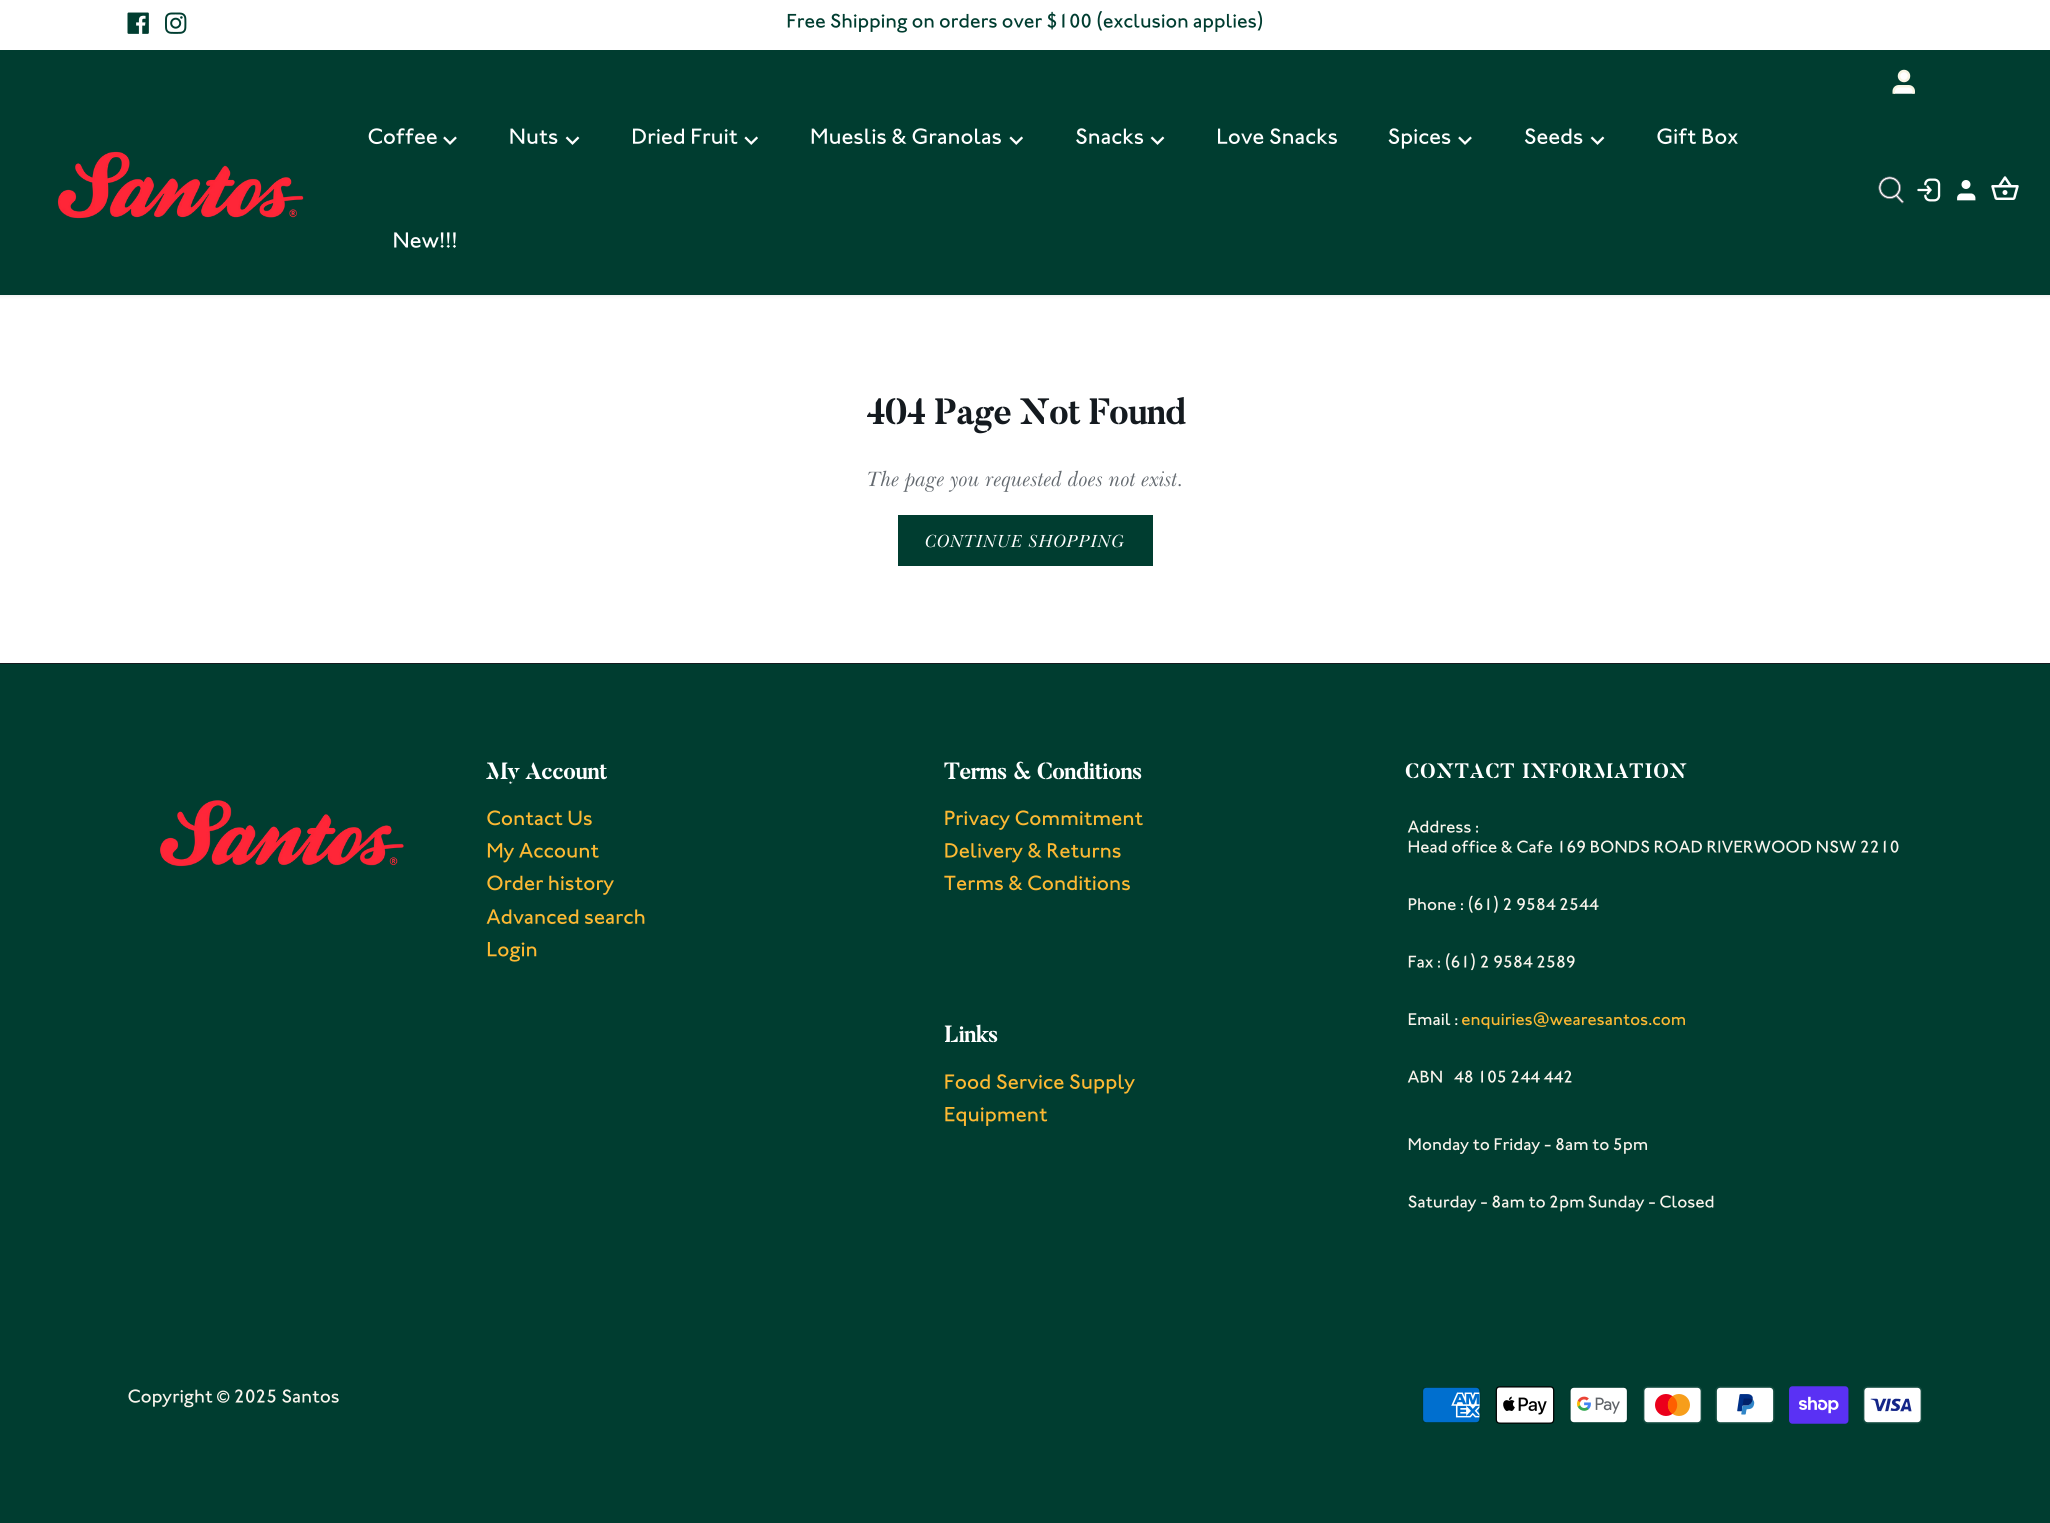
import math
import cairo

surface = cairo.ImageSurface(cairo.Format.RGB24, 2050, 1523)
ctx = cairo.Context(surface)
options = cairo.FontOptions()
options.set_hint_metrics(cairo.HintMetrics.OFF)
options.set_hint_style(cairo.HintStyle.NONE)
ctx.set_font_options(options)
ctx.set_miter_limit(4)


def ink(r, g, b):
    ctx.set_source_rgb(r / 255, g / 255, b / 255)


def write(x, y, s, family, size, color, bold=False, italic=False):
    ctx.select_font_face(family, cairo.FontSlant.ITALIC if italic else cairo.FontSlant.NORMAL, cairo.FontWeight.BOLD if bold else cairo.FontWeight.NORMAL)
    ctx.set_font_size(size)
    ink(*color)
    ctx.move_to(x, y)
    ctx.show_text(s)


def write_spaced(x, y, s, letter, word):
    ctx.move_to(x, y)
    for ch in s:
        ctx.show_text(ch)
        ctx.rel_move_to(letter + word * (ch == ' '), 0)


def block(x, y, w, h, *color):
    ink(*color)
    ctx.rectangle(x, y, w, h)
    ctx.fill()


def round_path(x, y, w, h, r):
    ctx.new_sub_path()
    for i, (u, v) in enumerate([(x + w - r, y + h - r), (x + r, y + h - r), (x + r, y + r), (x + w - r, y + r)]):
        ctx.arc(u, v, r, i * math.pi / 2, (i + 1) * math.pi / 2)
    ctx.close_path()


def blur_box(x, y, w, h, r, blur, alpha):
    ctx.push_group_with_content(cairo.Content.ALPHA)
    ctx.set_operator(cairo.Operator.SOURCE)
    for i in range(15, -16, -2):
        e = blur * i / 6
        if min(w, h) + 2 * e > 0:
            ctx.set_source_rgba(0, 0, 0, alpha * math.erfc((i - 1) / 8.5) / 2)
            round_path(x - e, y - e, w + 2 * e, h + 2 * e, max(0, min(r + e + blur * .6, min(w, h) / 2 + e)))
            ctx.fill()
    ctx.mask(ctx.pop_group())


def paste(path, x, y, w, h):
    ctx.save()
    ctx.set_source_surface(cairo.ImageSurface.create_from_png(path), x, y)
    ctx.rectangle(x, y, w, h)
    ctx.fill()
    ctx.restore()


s1 = dict(family="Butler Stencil", size=35, color=(20, 26, 31), bold=True)
s2 = dict(family="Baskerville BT", size=21.25, color=(100, 106, 112), italic=True)
s3 = dict(family="Butler Stencil", size=22.5, color=(255, 255, 255), bold=True)

ink(0, 61, 48)
ctx.paint()
block(0, 295, 2050, 368, 255, 255, 255)
ink(0, 0, 0)
blur_box(-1, 49, 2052, 247, 0, 2, 0.08)
block(0, 0, 2050, 50, 255, 255, 255)
paste("pic1.png", 127, 12, 22, 22)
paste("pic2.png", 165, 12, 22, 22)
paste("pic3.png", 787, 11, 476, 22)
block(0, 50, 2050, 245, 0, 61, 48)
paste("pic4.png", 1892, 69, 23, 25)
paste("pic5.png", 57, 151, 247, 68)
paste("pic6.png", 368, 128, 69, 17)
paste("pic7.png", 443, 136, 14, 9)
paste("pic8.png", 510, 128, 48, 16)
paste("pic9.png", 565, 136, 15, 9)
paste("pic10.png", 633, 128, 105, 16)
paste("pic11.png", 744, 136, 14, 9)
paste("pic12.png", 811, 128, 190, 17)
paste("pic11.png", 1009, 136, 14, 9)
paste("pic13.png", 1076, 128, 68, 16)
paste("pic9.png", 1150, 136, 15, 9)
paste("pic14.png", 1218, 128, 119, 16)
paste("pic15.png", 1388, 128, 63, 21)
paste("pic7.png", 1458, 136, 14, 9)
paste("pic16.png", 1524, 128, 59, 16)
paste("pic9.png", 1590, 136, 15, 9)
paste("pic17.png", 1657, 128, 81, 17)
paste("pic18.png", 394, 232, 62, 16)
paste("pic19.png", 1878, 176, 26, 28)
paste("pic20.png", 1917, 178, 24, 24)
paste("pic21.png", 1957, 180, 19, 21)
paste("pic22.png", 1991, 176, 28, 24)
write(866, 424, "404 Page Not Found", **s1)
write(867, 486, "The page you requested does not exist.", **s2)
block(898, 515, 255, 51, 0, 61, 48)
ctx.set_font_size(18)
ink(255, 255, 255)
write_spaced(925, 547, "CONTINUE SHOPPING", 0.2, 0)
block(0, 663, 2050, 1, 20, 26, 31)
write(486, 779, "My Account", **s3)
paste("pic23.png", 487, 810, 105, 16)
paste("pic24.png", 487, 843, 112, 20)
paste("pic25.png", 487, 875, 127, 20)
paste("pic26.png", 486, 909, 159, 15)
paste("pic27.png", 487, 942, 50, 20)
write(944, 779, "Terms & Conditions", **s3)
paste("pic28.png", 945, 810, 198, 20)
paste("pic29.png", 945, 843, 176, 20)
paste("pic30.png", 944, 875, 186, 16)
write(944, 1042, "Links", **s3)
paste("pic31.png", 945, 1074, 190, 20)
paste("pic32.png", 945, 1107, 103, 19)
ctx.set_font_size(20)
write_spaced(1405, 778, "CONTACT INFORMATION", 1.5, 0)
paste("pic33.png", 1407, 820, 71, 13)
paste("pic34.png", 1408, 840, 491, 13)
paste("pic35.png", 1408, 895, 191, 18)
paste("pic36.png", 1408, 953, 167, 18)
paste("pic37.png", 1408, 1013, 50, 13)
paste("pic38.png", 1462, 1012, 223, 17)
paste("pic39.png", 1407, 1070, 165, 13)
paste("pic40.png", 1408, 1138, 240, 16)
paste("pic41.png", 1408, 1195, 176, 17)
paste("pic42.png", 1588, 1195, 126, 17)
paste("pic43.png", 160, 800, 244, 67)
paste("pic44.png", 128, 1389, 85, 19)
paste("pic45.png", 217, 1389, 59, 14)
paste("pic46.png", 282, 1389, 57, 14)
paste("pic47.png", 1422, 1387, 59, 36)
paste("pic48.png", 1495, 1386, 60, 38)
paste("pic49.png", 1569, 1387, 59, 36)
paste("pic50.png", 1643, 1386, 59, 38)
paste("pic51.png", 1715, 1386, 60, 38)
paste("pic52.png", 1789, 1386, 60, 38)
paste("pic53.png", 1863, 1386, 59, 38)
surface.write_to_png("screenshot.png")
